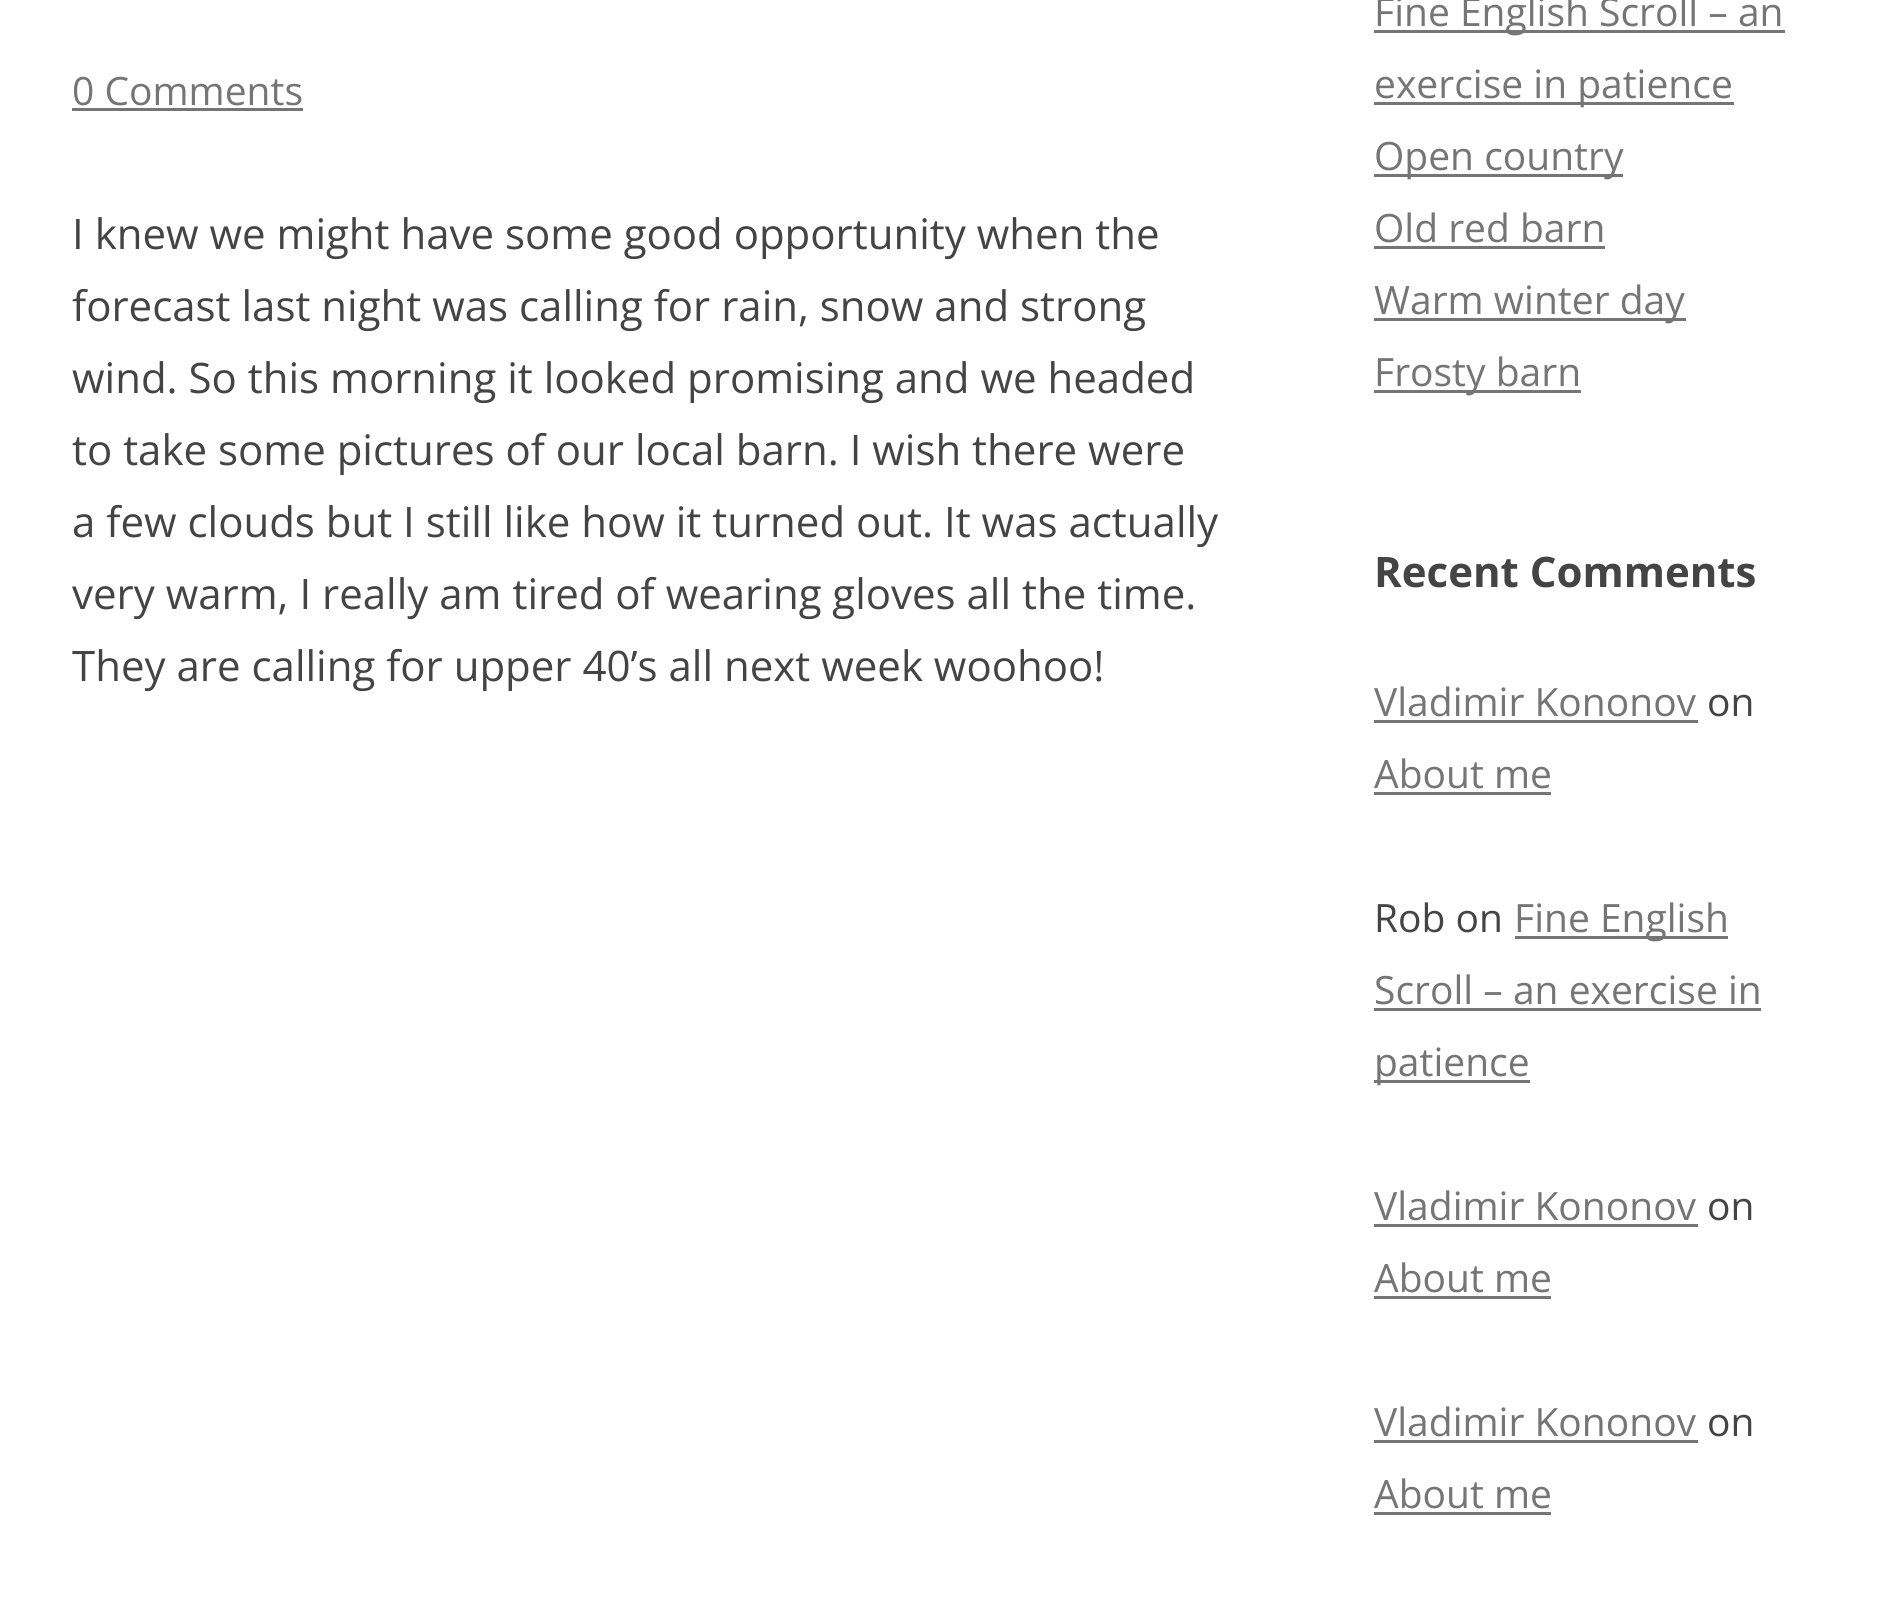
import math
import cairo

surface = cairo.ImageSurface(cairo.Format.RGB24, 1904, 1599)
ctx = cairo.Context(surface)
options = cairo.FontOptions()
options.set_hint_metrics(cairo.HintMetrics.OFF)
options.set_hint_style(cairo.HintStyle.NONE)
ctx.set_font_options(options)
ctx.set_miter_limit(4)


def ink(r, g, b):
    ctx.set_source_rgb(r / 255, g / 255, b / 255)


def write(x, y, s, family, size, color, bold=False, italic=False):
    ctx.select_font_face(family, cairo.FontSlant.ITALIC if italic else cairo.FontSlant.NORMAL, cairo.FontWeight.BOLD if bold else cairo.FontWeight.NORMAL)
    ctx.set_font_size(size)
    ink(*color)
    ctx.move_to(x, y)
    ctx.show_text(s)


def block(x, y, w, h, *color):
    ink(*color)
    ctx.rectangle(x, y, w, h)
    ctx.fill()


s1 = dict(family="Open Sans", size=39, color=(117, 117, 117))
s2 = dict(family="Open Sans", size=42, color=(68, 68, 68))
s3 = dict(family="Open Sans", size=42, color=(68, 68, 68), bold=True)
s4 = dict(family="Open Sans", size=39, color=(68, 68, 68))

ink(255, 255, 255)
ctx.paint()
write(72, 105, "0 Comments", **s1)
block(72, 108, 231, 3, 117, 117, 117)
write(72, 249, "I knew we might have some good opportunity when the", **s2)
write(72, 321, "forecast last night was calling for rain, snow and strong", **s2)
write(72, 393, "wind. So this morning it looked promising and we headed", **s2)
write(72, 465, "to take some pictures of our local barn. I wish there were", **s2)
write(72, 537, "a few clouds but I still like how it turned out. It was actually", **s2)
write(72, 609, "very warm, I really am tired of wearing gloves all the time.", **s2)
write(72, 681, "They are calling for upper 40’s all next week woohoo!", **s2)
block(1374, 30, 411, 3, 117, 117, 117)
write(1374, 26, "Fine English Scroll – an", **s1)
block(1374, 102, 360, 3, 117, 117, 117)
write(1374, 98, "exercise in patience", **s1)
block(1374, 174, 249, 3, 117, 117, 117)
write(1374, 170, "Open country", **s1)
write(1374, 242, "Old red barn", **s1)
block(1374, 246, 231, 3, 117, 117, 117)
block(1374, 318, 312, 3, 117, 117, 117)
write(1374, 314, "Warm winter day", **s1)
block(1374, 390, 207, 3, 117, 117, 117)
write(1374, 386, "Frosty barn", **s1)
write(1374, 587, "Recent Comments", **s3)
write(1374, 716, "Vladimir Kononov", **s1)
block(1374, 720, 324, 3, 117, 117, 117)
write(1707, 716, "on", **s4)
write(1374, 788, "About me", **s1)
block(1374, 792, 177, 3, 117, 117, 117)
write(1374, 932, "Rob on", **s4)
block(1515, 936, 213, 3, 117, 117, 117)
write(1514, 932, "Fine English", **s1)
write(1374, 1004, "Scroll – an exercise in", **s1)
block(1374, 1008, 387, 3, 117, 117, 117)
block(1374, 1080, 156, 3, 117, 117, 117)
write(1374, 1076, "patience", **s1)
write(1374, 1220, "Vladimir Kononov", **s1)
block(1374, 1224, 324, 3, 117, 117, 117)
write(1707, 1220, "on", **s4)
write(1374, 1292, "About me", **s1)
block(1374, 1296, 177, 3, 117, 117, 117)
write(1374, 1436, "Vladimir Kononov", **s1)
block(1374, 1440, 324, 3, 117, 117, 117)
write(1707, 1436, "on", **s4)
write(1374, 1508, "About me", **s1)
block(1374, 1512, 177, 3, 117, 117, 117)
surface.write_to_png("screenshot.png")
